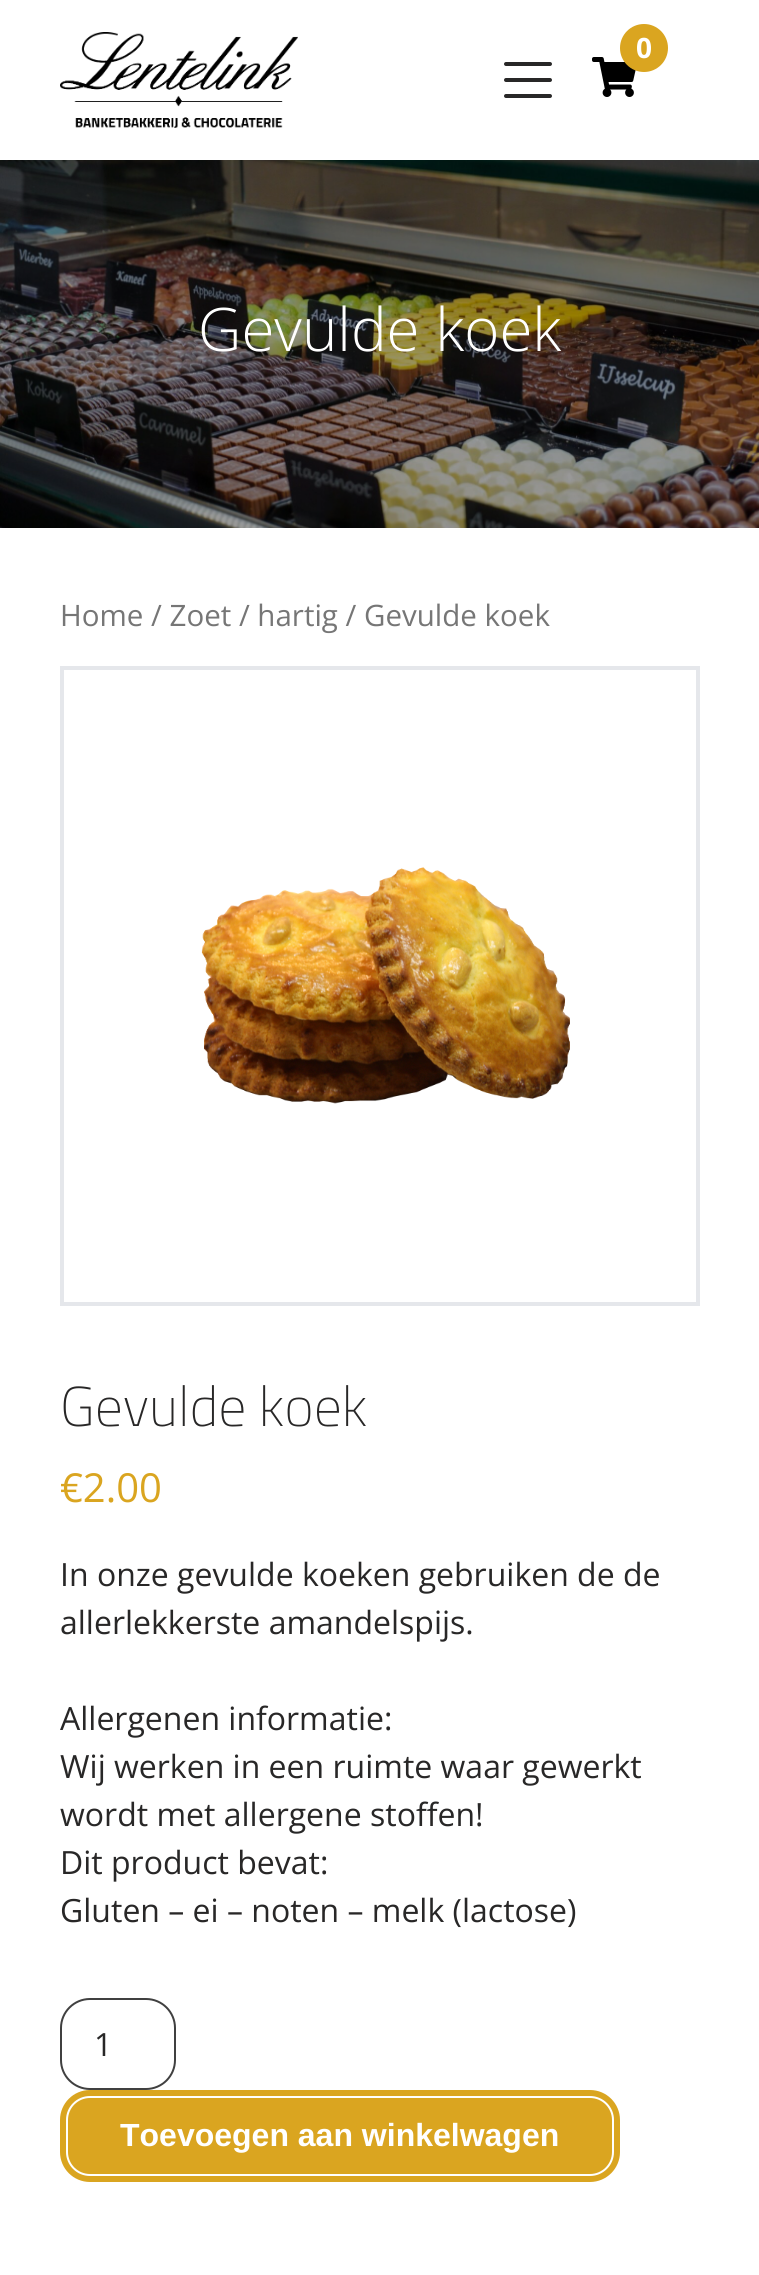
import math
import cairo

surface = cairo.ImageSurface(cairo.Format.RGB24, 759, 2275)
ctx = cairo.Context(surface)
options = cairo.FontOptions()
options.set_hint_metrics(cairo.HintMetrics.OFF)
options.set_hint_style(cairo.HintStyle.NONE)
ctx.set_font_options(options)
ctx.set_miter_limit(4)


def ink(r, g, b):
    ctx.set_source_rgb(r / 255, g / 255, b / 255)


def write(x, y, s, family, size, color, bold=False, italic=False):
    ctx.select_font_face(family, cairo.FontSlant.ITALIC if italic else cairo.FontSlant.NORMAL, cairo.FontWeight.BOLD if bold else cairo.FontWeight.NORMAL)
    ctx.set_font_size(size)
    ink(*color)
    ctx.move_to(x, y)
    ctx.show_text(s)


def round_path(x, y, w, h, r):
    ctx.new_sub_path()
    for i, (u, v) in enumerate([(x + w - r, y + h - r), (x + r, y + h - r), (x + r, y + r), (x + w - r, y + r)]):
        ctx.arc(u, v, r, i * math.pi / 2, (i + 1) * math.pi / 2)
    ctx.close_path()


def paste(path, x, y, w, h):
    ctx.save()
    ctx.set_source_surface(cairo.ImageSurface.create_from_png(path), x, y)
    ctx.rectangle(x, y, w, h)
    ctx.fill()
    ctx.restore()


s1 = dict(family="Open Sans", size=28, color=(255, 255, 255), bold=True)
s2 = dict(family="Open Sans Light", size=60, color=(255, 255, 255))
s3 = dict(family="Open Sans", size=29.5, color=(118, 118, 118))
s4 = dict(family="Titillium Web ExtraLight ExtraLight", size=56, color=(40, 39, 39))
s5 = dict(family="Open Sans", size=40, color=(218, 165, 32))
s6 = dict(family="Open Sans", size=32, color=(40, 39, 39))
s7 = dict(family="Liberation Sans", size=32, color=(255, 255, 255), bold=True)

ink(255, 255, 255)
ctx.paint()
paste("pic1.png", 60, 32, 238, 96)
paste("pic2.png", 592, 57, 44, 40)
ink(218, 165, 32)
ctx.arc(644, 48, 24, 0, 2 * math.pi)
ctx.fill()
write(636, 58, "0", **s1)
ink(40, 39, 39)
round_path(504, 94, 48, 4, 2)
ctx.fill()
round_path(504, 78, 48, 4, 2)
ctx.fill()
round_path(504, 62, 48, 4, 2)
ctx.fill()
paste("pic3.png", 0, 160, 759, 368)
write(198, 351, "Gevulde koek", **s2)
write(60, 626, "Home / Zoet / hartig / Gevulde koek", **s3)
ctx.rectangle(62, 668, 636, 636)
ink(229, 231, 235)
ctx.set_line_width(4)
ctx.stroke()
paste("pic4.png", 201, 867, 369, 237)
write(60, 1426, "Gevulde koek", **s4)
write(60, 1502, "€2.00", **s5)
write(60, 1586, "In onze gevulde koeken gebruiken de de", **s6)
write(60, 1634, "allerlekkerste amandelspijs.", **s6)
write(60, 1730, "Allergenen informatie:", **s6)
write(60, 1778, "Wij werken in een ruimte waar gewerkt", **s6)
write(60, 1826, "wordt met allergene stoffen!", **s6)
write(60, 1874, "Dit product bevat:", **s6)
write(60, 1922, "Gluten – ei – noten – melk (lactose)", **s6)
round_path(61, 1999, 114, 90, 29)
ink(64, 64, 64)
ctx.set_line_width(2)
ctx.stroke()
write(94, 2056, "1", **s6)
ink(218, 165, 32)
round_path(60, 2090, 560, 92, 30)
ctx.fill()
round_path(67, 2097, 546, 78, 23)
ink(255, 255, 255)
ctx.stroke()
write(120, 2146, "Toevoegen aan winkelwagen", **s7)
surface.write_to_png("screenshot.png")
